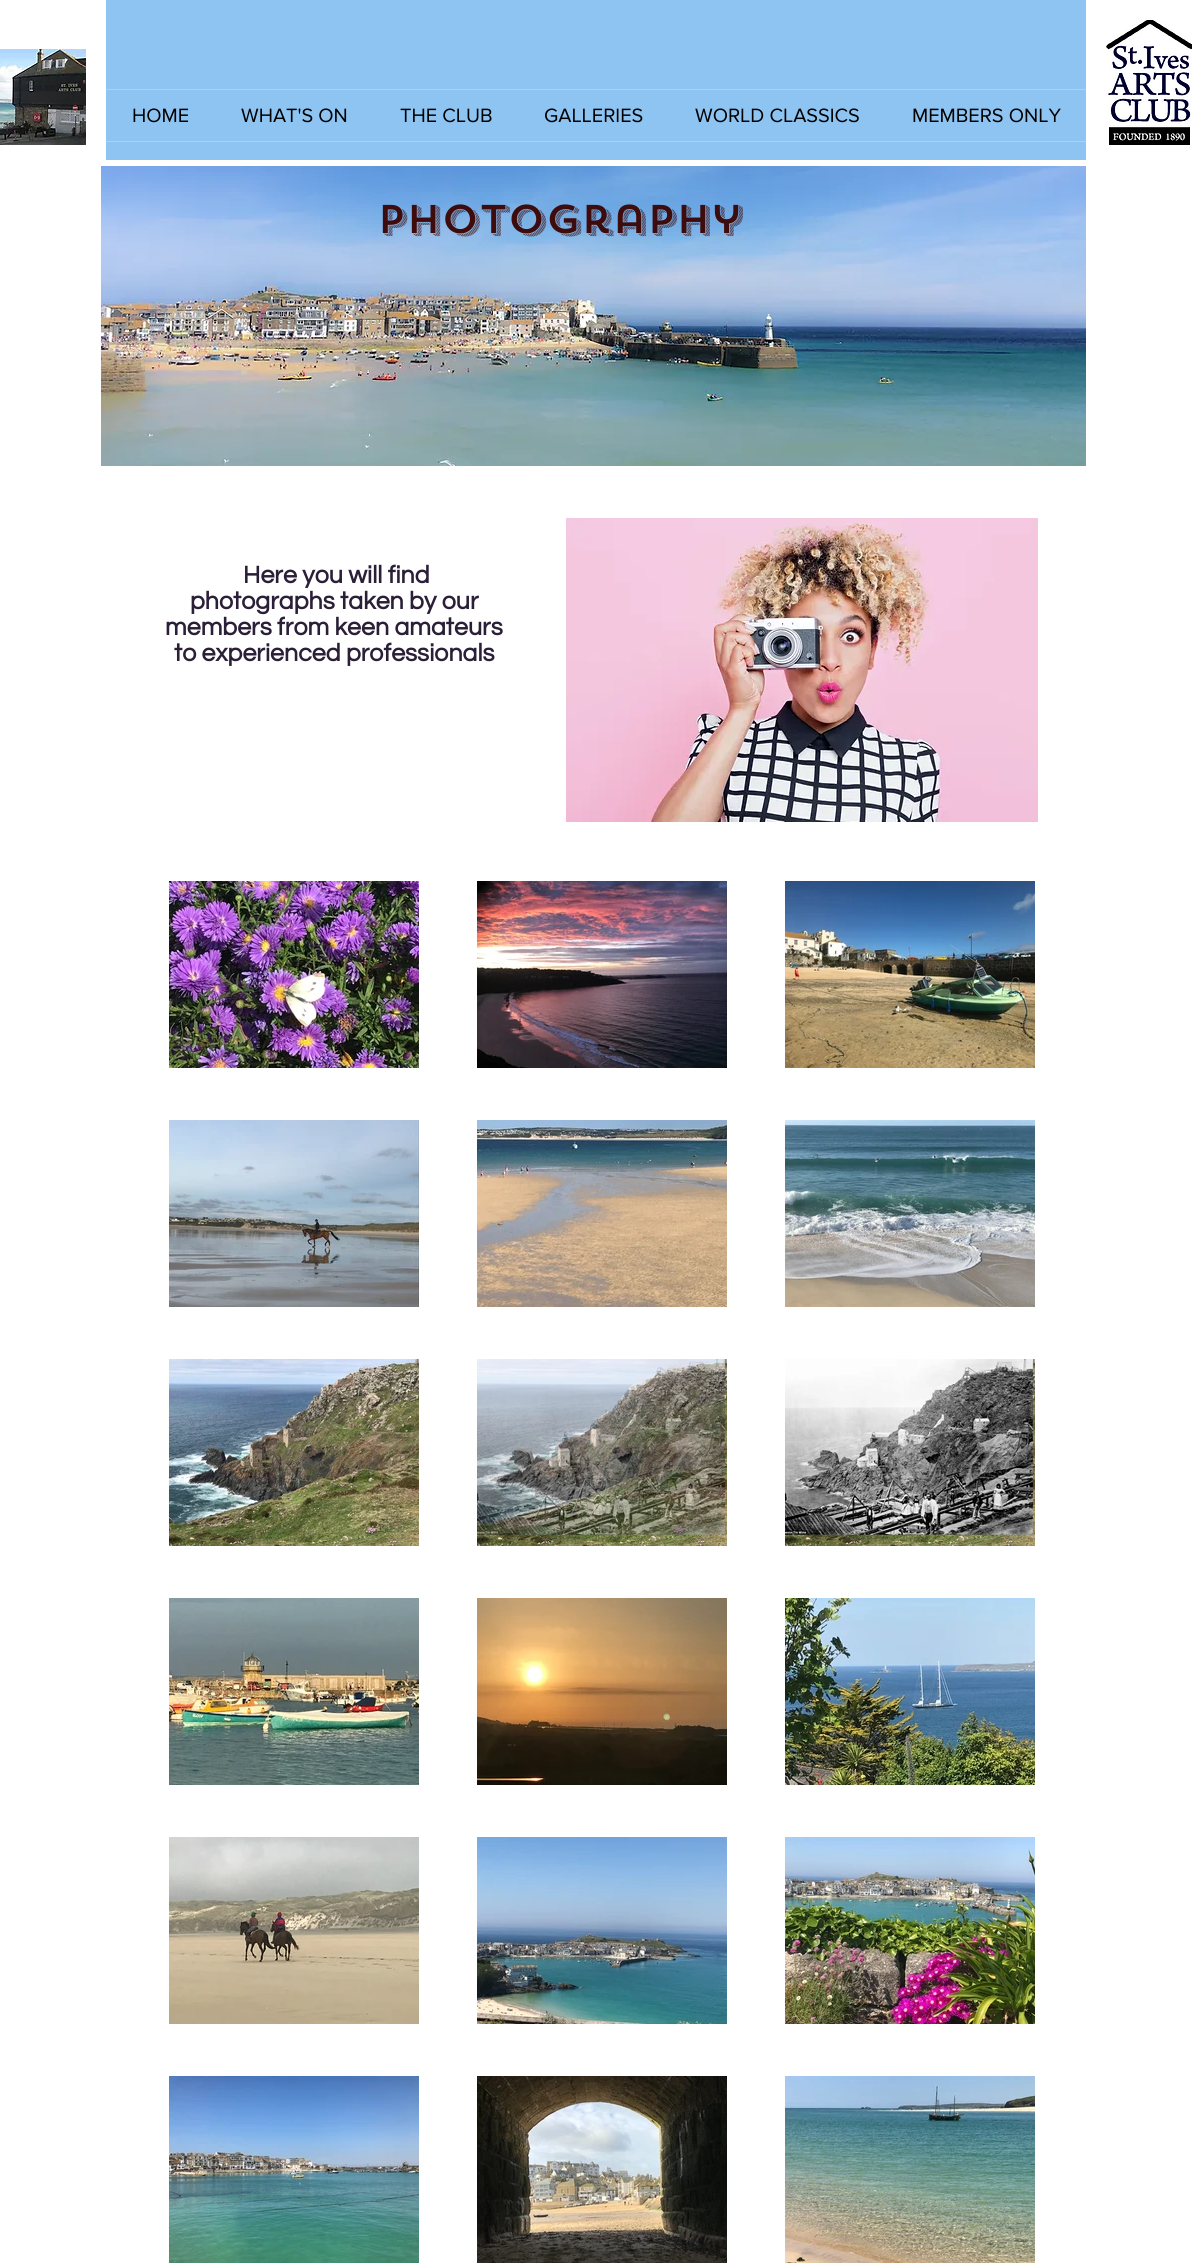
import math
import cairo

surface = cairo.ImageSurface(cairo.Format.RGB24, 1192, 2267)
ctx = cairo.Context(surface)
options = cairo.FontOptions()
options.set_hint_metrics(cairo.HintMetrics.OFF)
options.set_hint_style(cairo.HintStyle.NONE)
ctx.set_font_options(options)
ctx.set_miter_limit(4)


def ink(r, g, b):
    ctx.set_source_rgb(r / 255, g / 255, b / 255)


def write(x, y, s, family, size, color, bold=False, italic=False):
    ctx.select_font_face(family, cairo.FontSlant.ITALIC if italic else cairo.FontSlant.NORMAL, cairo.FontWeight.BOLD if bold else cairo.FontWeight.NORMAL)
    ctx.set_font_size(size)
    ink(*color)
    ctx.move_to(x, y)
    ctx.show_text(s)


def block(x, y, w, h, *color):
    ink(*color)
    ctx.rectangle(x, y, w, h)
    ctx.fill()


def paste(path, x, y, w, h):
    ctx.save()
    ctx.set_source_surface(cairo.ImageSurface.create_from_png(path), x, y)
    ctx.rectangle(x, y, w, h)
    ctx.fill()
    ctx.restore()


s1 = dict(family="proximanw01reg", size=20, color=(0, 0, 0))
s2 = dict(family="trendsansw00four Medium", size=40, color=(62, 12, 12))
s3 = dict(family="Questrial", size=25, color=(43, 31, 56), bold=True)

ink(255, 255, 255)
ctx.paint()
block(106, 0, 980, 160, 141, 196, 242)
paste("pic1.png", 0, 49, 86, 96)
block(106, 89, 980, 1, 202, 202, 202)
block(106, 141, 980, 1, 202, 202, 202)
write(132, 122, "HOME", **s1)
write(241, 122, "WHAT'S ON", **s1)
write(400, 122, "THE CLUB", **s1)
write(544, 122, "GALLERIES", **s1)
write(695, 122, "WORLD CLASSICS", **s1)
write(912, 122, "MEMBERS ONLY", **s1)
paste("pic2.png", 1106, 20, 86, 125)
paste("pic3.png", 101, 166, 985, 300)
write(377, 233, "photography", **s2)
write(243, 583, "Here you will find", **s3)
write(190, 609, "photographs taken by our", **s3)
write(165, 635, "members from keen amateurs", **s3)
write(174, 661, "to experienced professionals", **s3)
paste("pic4.png", 566, 518, 472, 304)
paste("pic5.png", 169, 881, 250, 187)
paste("pic6.png", 477, 881, 250, 187)
paste("pic7.png", 785, 881, 250, 187)
paste("pic8.png", 169, 1120, 250, 187)
paste("pic9.png", 477, 1120, 250, 187)
paste("pic10.png", 785, 1120, 250, 187)
paste("pic11.png", 169, 1359, 250, 187)
paste("pic12.png", 477, 1359, 250, 187)
paste("pic13.png", 785, 1359, 250, 187)
paste("pic14.png", 169, 1598, 250, 187)
paste("pic15.png", 477, 1598, 250, 187)
paste("pic16.png", 785, 1598, 250, 187)
paste("pic17.png", 169, 1837, 250, 187)
paste("pic18.png", 477, 1837, 250, 187)
paste("pic19.png", 785, 1837, 250, 187)
paste("pic20.png", 169, 2076, 250, 187)
paste("pic21.png", 477, 2076, 250, 187)
paste("pic22.png", 785, 2076, 250, 187)
surface.write_to_png("screenshot.png")
